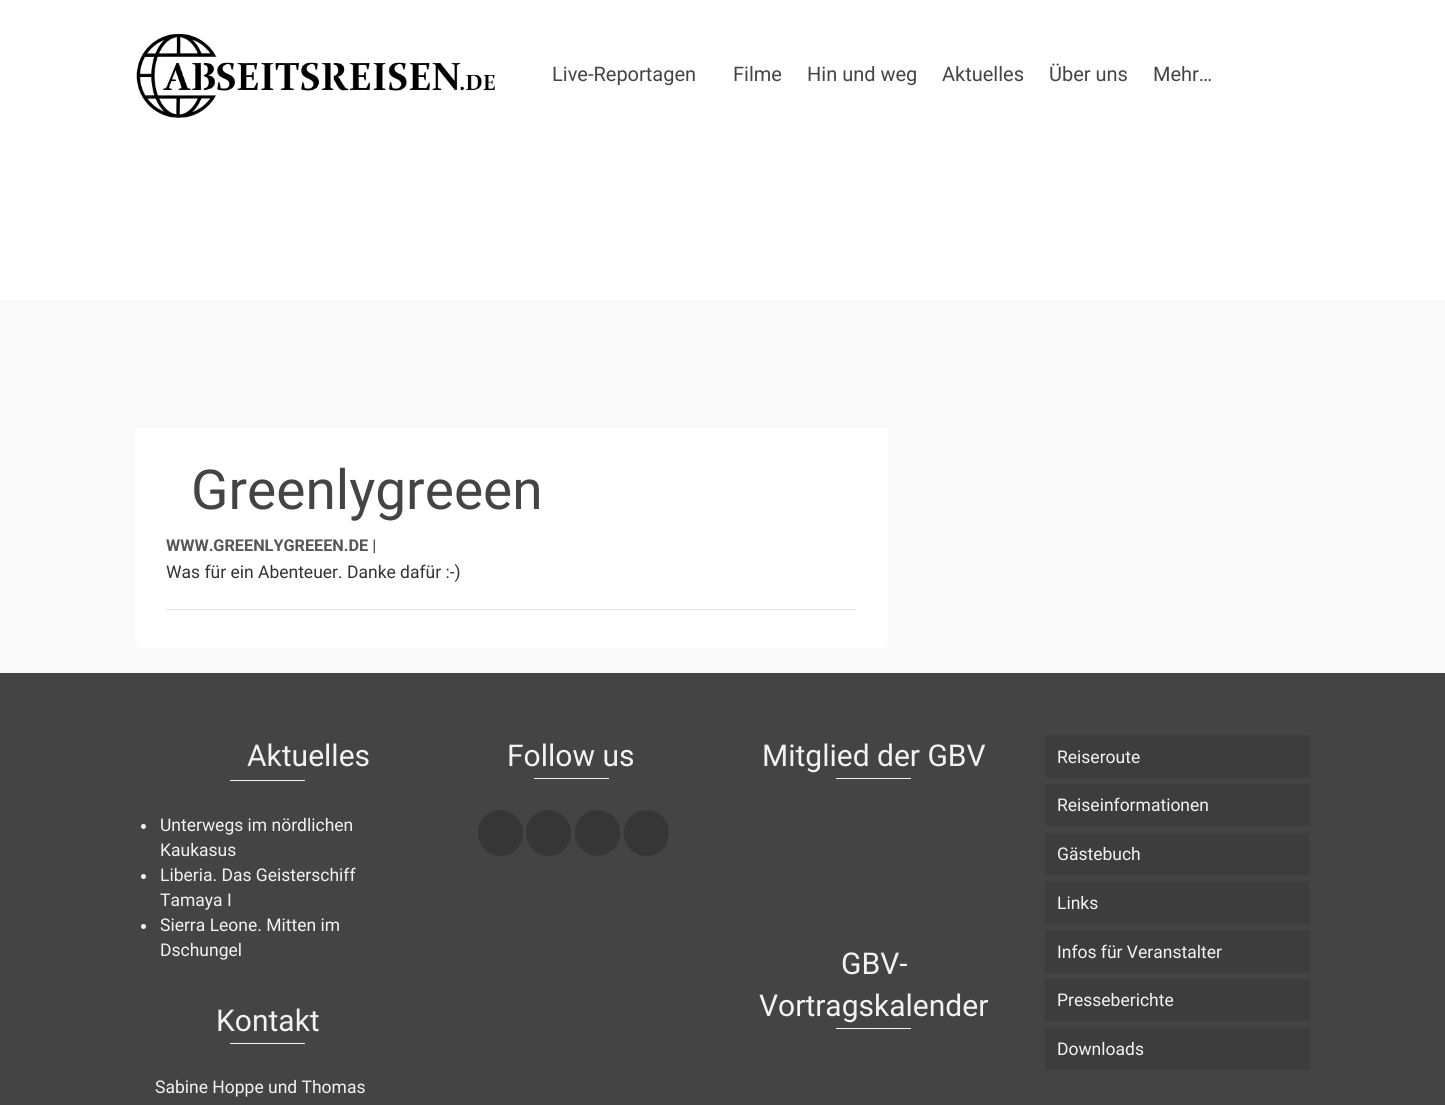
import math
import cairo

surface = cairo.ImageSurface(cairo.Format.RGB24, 1445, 1105)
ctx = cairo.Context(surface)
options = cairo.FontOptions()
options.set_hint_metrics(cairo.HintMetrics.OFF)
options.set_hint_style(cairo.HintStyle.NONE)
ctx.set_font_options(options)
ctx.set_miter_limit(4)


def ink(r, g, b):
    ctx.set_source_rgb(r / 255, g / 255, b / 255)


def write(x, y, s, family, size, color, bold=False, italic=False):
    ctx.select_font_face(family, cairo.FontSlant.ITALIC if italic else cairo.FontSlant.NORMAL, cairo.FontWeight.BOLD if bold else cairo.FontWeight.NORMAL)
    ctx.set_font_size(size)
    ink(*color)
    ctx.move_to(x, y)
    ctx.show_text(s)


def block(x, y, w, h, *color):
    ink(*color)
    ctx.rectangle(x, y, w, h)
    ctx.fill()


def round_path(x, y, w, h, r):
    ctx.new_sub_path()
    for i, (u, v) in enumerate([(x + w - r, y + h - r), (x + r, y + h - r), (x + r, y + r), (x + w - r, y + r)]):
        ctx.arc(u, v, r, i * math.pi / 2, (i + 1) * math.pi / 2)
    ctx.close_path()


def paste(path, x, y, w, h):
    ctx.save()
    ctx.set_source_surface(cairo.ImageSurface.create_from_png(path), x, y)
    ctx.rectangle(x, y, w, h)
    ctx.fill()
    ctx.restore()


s1 = dict(family="Roboto", size=20, color=(68, 68, 68))
s2 = dict(family="Roboto", size=55, color=(68, 68, 68))
s3 = dict(family="Roboto", size=16.25, color=(85, 85, 85), bold=True)
s4 = dict(family="Roboto", size=17.5, color=(51, 51, 51))
s5 = dict(family="Roboto", size=30, color=(242, 242, 242))
s6 = dict(family="Roboto", size=17.5, color=(242, 242, 242))

ink(255, 255, 255)
ctx.paint()
paste("pic1.png", 136, 34, 359, 84)
write(552, 81, "Live-Reportagen", **s1)
write(733, 81, "Filme", **s1)
write(807, 81, "Hin und weg", **s1)
write(942, 81, "Aktuelles", **s1)
write(1049, 81, "Über uns", **s1)
write(1153, 81, "Mehr…", **s1)
block(0, 300, 1445, 373, 249, 249, 249)
ink(255, 255, 255)
ctx.new_path()
ctx.move_to(135, 428)
ctx.line_to(888, 428)
ctx.line_to(888, 642)
ctx.curve_to(888, 645.5, 885.5, 648, 882, 648)
ctx.line_to(141, 648)
ctx.curve_to(137.5, 648, 135, 645.5, 135, 642)
ctx.close_path()
ctx.fill()
write(191, 509, "Greenlygreeen", **s2)
write(166, 551, "WWW.GREENLYGREEEN.DE |", **s3)
write(166, 578, "Was für ein Abenteuer. Danke dafür :-)", **s4)
block(166, 609, 690, 1, 230, 230, 230)
block(0, 673, 1445, 432, 68, 68, 68)
write(247, 766, "Aktuelles", **s5)
block(230, 780, 75, 1, 242, 242, 242)
ctx.new_path()
ctx.arc(143.5, 826.5, 2.5, 0, 2 * math.pi)
ctx.fill()
write(160, 831, "Unterwegs im nördlichen", **s6)
write(160, 856, "Kaukasus", **s6)
ctx.new_path()
ctx.arc(143.5, 876.5, 2.5, 0, 2 * math.pi)
ctx.fill()
write(160, 881, "Liberia. Das Geisterschiff", **s6)
write(160, 906, "Tamaya I", **s6)
ctx.new_path()
ctx.arc(143.5, 926.5, 2.5, 0, 2 * math.pi)
ctx.fill()
write(160, 931, "Sierra Leone. Mitten im", **s6)
write(160, 956, "Dschungel", **s6)
write(216, 1031, "Kontakt", **s5)
block(230, 1043, 75, 1, 242, 242, 242)
write(155, 1093, "Sabine Hoppe und Thomas", **s6)
write(507, 766, "Follow us", **s5)
block(534, 778, 75, 1, 242, 242, 242)
ink(54, 54, 54)
round_path(478, 810, 45, 46, 22.5)
ctx.fill()
round_path(526, 810, 45, 46, 22.5)
ctx.fill()
round_path(575, 810, 45, 46, 22.5)
ctx.fill()
round_path(624, 810, 45, 46, 22.5)
ctx.fill()
write(762, 766, "Mitglied der GBV", **s5)
block(836, 778, 75, 1, 242, 242, 242)
write(841, 974, "GBV-", **s5)
write(759, 1016, "Vortragskalender", **s5)
block(836, 1028, 75, 1, 242, 242, 242)
block(1045, 735, 265, 43, 61, 61, 61)
write(1057, 763, "Reiseroute", **s6)
block(1045, 784, 265, 42, 61, 61, 61)
write(1057, 811, "Reiseinformationen", **s6)
block(1045, 833, 265, 42, 61, 61, 61)
write(1057, 860, "Gästebuch", **s6)
block(1045, 881, 265, 43, 61, 61, 61)
write(1057, 909, "Links", **s6)
block(1045, 930, 265, 43, 61, 61, 61)
write(1057, 958, "Infos für Veranstalter", **s6)
block(1045, 979, 265, 42, 61, 61, 61)
write(1057, 1006, "Presseberichte", **s6)
block(1045, 1028, 265, 42, 61, 61, 61)
write(1057, 1055, "Downloads", **s6)
surface.write_to_png("screenshot.png")
